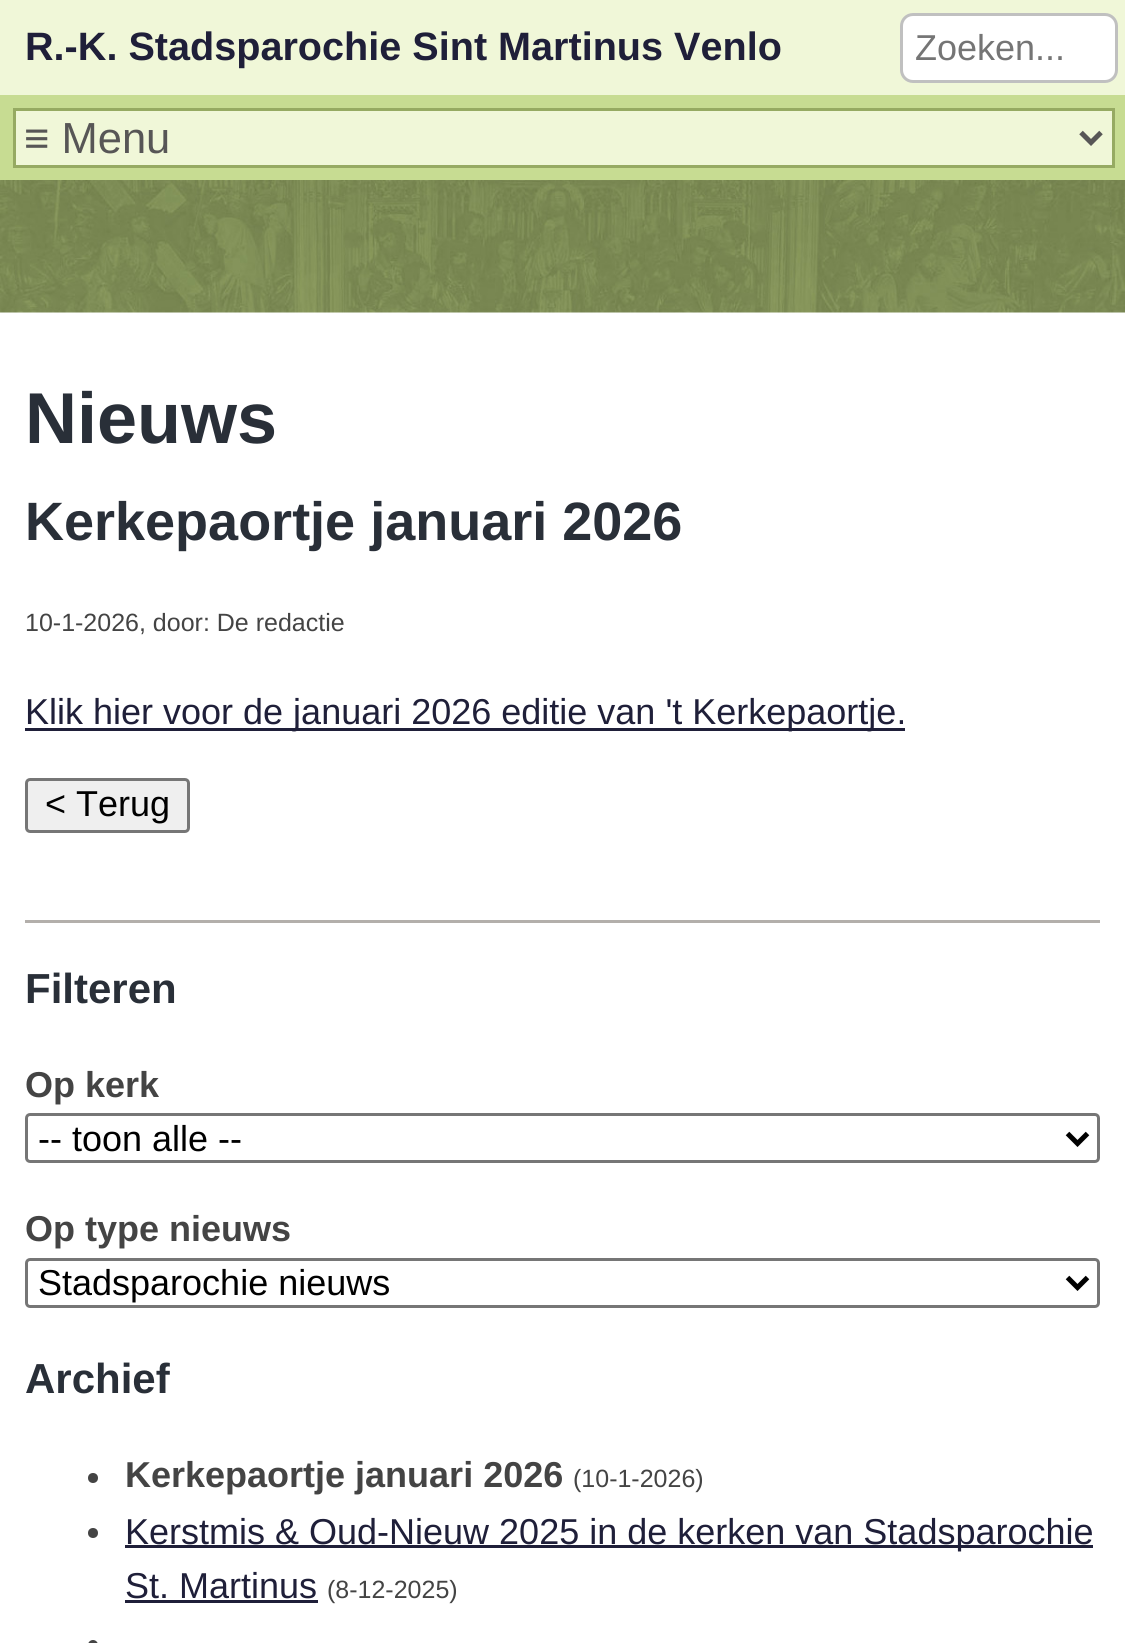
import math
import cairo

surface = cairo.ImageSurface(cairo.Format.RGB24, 1125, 1643)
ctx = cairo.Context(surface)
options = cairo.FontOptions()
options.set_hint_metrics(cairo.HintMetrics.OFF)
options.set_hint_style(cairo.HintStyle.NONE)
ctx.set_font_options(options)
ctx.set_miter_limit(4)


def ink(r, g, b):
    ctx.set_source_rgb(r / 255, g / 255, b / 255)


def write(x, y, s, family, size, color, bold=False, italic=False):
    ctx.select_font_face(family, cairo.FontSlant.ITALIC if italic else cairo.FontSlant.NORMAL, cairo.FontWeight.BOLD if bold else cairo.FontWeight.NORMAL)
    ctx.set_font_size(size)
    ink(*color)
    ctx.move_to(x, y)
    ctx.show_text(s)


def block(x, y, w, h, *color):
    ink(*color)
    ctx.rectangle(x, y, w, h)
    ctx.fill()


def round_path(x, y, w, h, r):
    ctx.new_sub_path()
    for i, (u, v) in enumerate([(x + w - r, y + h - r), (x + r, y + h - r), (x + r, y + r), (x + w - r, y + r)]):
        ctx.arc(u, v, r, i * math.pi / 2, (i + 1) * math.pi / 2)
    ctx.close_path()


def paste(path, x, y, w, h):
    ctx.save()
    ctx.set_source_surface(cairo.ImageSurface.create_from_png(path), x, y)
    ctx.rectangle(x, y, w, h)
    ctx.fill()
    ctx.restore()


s1 = dict(family="Liberation Sans", size=39.6, color=(31, 31, 57), bold=True)
s2 = dict(family="Liberation Sans", size=36, color=(117, 117, 117))
s3 = dict(family="Liberation Sans", size=43.5, color=(87, 86, 86))
s4 = dict(family="Liberation Sans", size=72, color=(41, 47, 56), bold=True)
s5 = dict(family="Liberation Sans", size=54, color=(41, 47, 56), bold=True)
s6 = dict(family="Liberation Sans", size=25, color=(68, 68, 68))
s7 = dict(family="Liberation Sans", size=36, color=(31, 31, 57))
s8 = dict(family="Liberation Sans", size=36, color=(0, 0, 0))
s9 = dict(family="Liberation Sans", size=42, color=(41, 47, 56), bold=True)
s10 = dict(family="Liberation Sans", size=36, color=(68, 68, 68), bold=True)

ink(255, 255, 255)
ctx.paint()
block(0, 0, 1125, 95, 240, 247, 216)
write(25, 60, "R.-K. Stadsparochie Sint Martinus Venlo", **s1)
ink(255, 255, 255)
round_path(901.5, 14.5, 215, 67, 11.5)
ctx.fill_preserve()
ink(192, 192, 192)
ctx.set_line_width(3)
ctx.stroke()
write(915, 60, "Zoeken...", **s2)
block(0, 95, 1125, 85, 199, 220, 146)
ink(240, 247, 216)
ctx.rectangle(14.5, 109.5, 1099, 57)
ctx.fill_preserve()
ink(150, 170, 98)
ctx.stroke()
ctx.new_path()
ctx.move_to(1081, 132.5)
ctx.line_to(1091, 142.5)
ctx.line_to(1101, 132.5)
ink(87, 86, 86)
ctx.set_line_width(5)
ctx.stroke()
write(24, 153, "≡ Menu", **s3)
paste("pic1.png", 0, 180, 1125, 133)
write(25, 443, "Nieuws", **s4)
write(25, 540, "Kerkepaortje januari 2026", **s5)
write(25, 631, "10-1-2026, door: De redactie", **s6)
block(25, 728, 880, 3, 31, 31, 57)
write(25, 724, "Klik hier voor de januari 2026 editie van 't Kerkepaortje.", **s7)
ink(239, 239, 239)
round_path(26.5, 779.5, 162, 52, 3.5)
ctx.fill_preserve()
ink(118, 118, 118)
ctx.set_line_width(3)
ctx.stroke()
write(45, 816, "< Terug", **s8)
block(25, 920, 1075, 3, 179, 175, 171)
write(25, 1003, "Filteren", **s9)
write(25, 1097, "Op kerk", **s10)
round_path(26.5, 1114.5, 1072, 47, 3.5)
ink(118, 118, 118)
ctx.stroke()
ctx.new_path()
ctx.move_to(1067.5, 1133.5)
ctx.line_to(1077.5, 1143.5)
ctx.line_to(1087.5, 1133.5)
ink(0, 0, 0)
ctx.set_line_width(5)
ctx.stroke()
write(38, 1151, "-- toon alle --", **s8)
write(25, 1241, "Op type nieuws", **s10)
round_path(26.5, 1259.5, 1072, 47, 3.5)
ink(118, 118, 118)
ctx.set_line_width(3)
ctx.stroke()
ctx.new_path()
ctx.move_to(1067.5, 1277.5)
ctx.line_to(1077.5, 1287.5)
ctx.line_to(1087.5, 1277.5)
ink(0, 0, 0)
ctx.set_line_width(5)
ctx.stroke()
write(38, 1295, "Stadsparochie nieuws", **s8)
write(25, 1393, "Archief", **s9)
ink(68, 68, 68)
ctx.new_path()
ctx.arc(93, 1478, 5, 0, 2 * math.pi)
ctx.fill()
write(125, 1487, "Kerkepaortje januari 2026", **s10)
write(573, 1487, "(10-1-2026)", **s6)
ctx.new_path()
ctx.arc(93, 1533, 5, 0, 2 * math.pi)
ctx.fill()
block(125, 1545, 968, 3, 31, 31, 57)
write(125, 1544, "Kerstmis & Oud-Nieuw 2025 in de kerken van Stadsparochie", **s7)
write(125, 1598, "St. Martinus", **s7)
block(125, 1600, 193, 3, 31, 31, 57)
write(327, 1598, "(8-12-2025)", **s6)
round_path(88, 1640, 10, 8, 5)
ctx.fill()
surface.write_to_png("screenshot.png")
